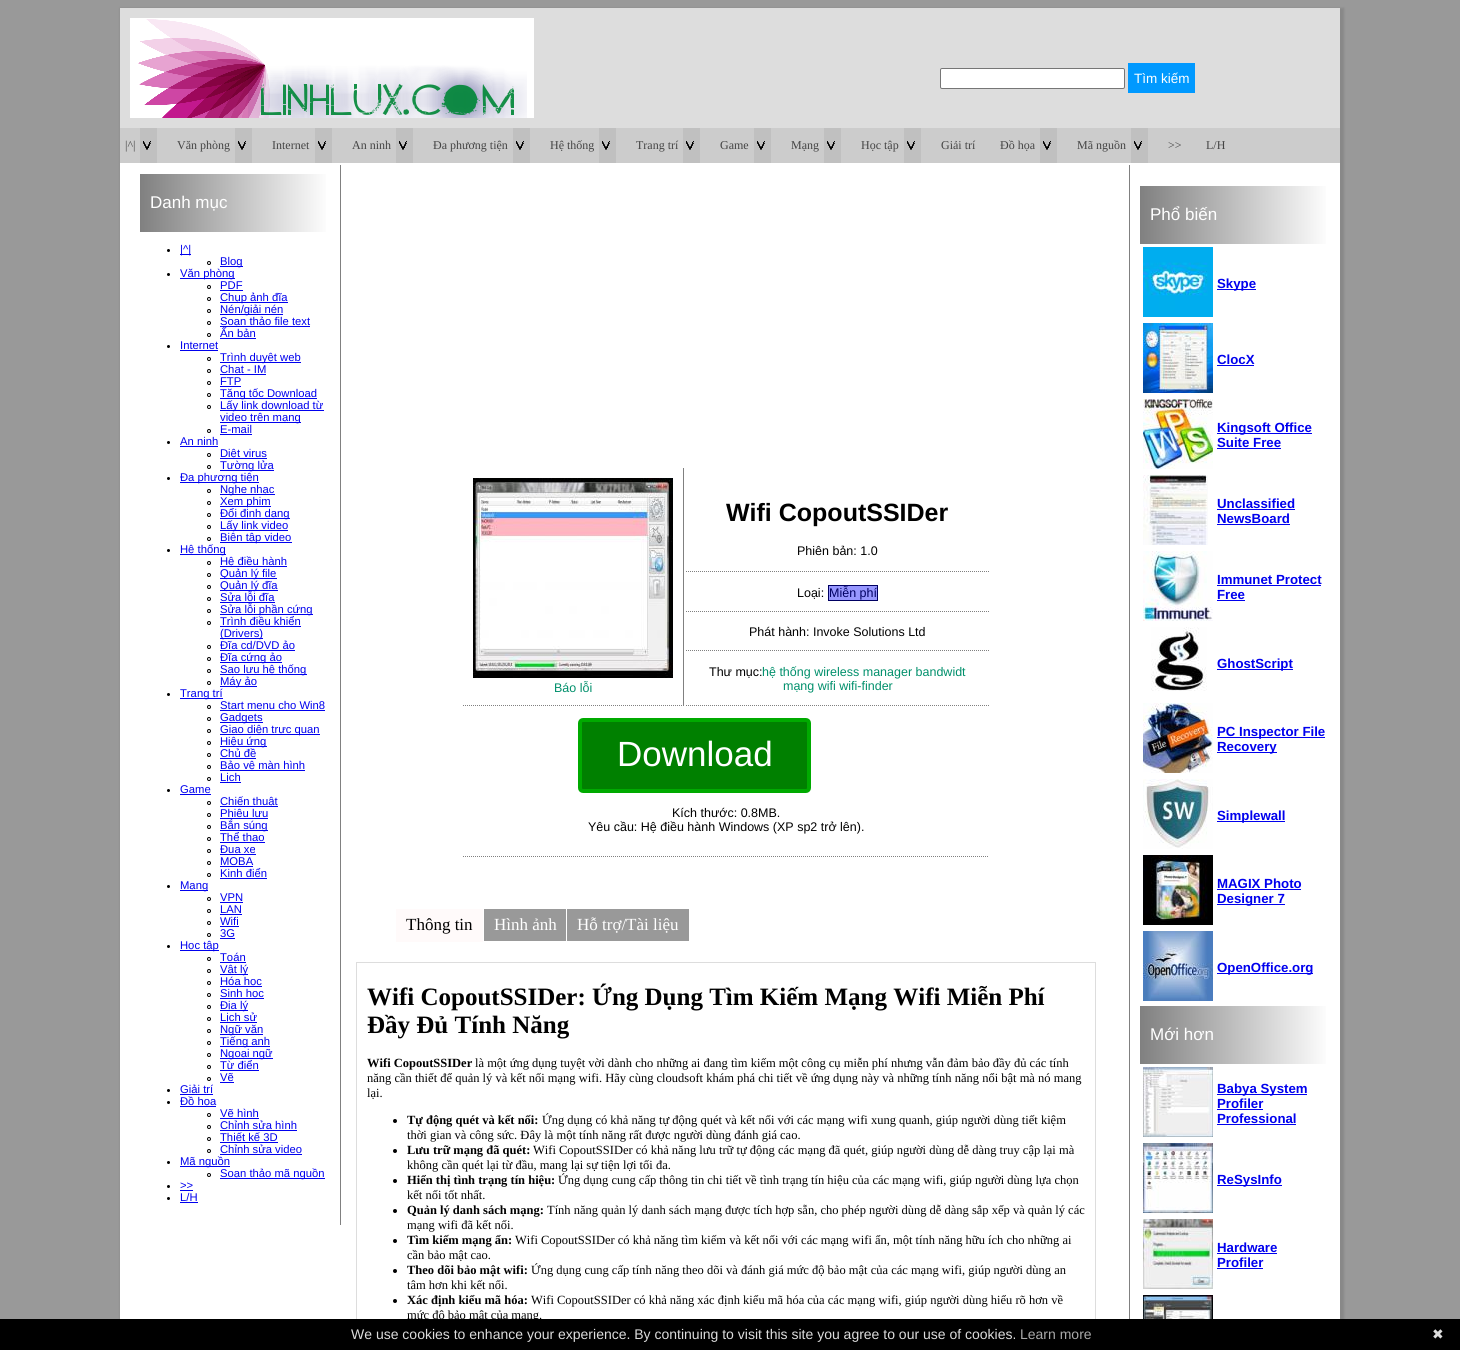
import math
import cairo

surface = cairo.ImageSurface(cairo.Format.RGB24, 1460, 1350)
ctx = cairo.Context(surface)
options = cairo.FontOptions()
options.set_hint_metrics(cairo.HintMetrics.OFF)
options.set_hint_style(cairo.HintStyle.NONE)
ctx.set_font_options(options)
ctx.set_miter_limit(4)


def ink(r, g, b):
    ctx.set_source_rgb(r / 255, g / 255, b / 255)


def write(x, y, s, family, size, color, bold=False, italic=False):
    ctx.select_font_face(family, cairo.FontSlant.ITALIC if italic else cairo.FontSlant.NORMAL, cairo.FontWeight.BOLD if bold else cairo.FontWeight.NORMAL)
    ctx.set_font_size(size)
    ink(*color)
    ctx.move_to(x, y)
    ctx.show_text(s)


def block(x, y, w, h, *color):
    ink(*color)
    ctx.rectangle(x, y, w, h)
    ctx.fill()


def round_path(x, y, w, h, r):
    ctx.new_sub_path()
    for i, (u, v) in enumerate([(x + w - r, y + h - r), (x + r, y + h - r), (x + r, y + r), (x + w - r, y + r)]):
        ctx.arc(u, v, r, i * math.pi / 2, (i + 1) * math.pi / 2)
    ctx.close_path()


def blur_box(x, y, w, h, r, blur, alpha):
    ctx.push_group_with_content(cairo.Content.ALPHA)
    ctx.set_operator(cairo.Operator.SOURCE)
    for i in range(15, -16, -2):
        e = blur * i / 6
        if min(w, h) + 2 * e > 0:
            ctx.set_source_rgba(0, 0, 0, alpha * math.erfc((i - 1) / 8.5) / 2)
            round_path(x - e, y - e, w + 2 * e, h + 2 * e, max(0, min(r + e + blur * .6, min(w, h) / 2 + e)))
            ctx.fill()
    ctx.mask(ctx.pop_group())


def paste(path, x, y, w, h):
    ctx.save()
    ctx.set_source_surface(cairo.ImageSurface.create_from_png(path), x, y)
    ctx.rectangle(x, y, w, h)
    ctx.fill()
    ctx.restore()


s1 = dict(family="Liberation Sans", size=13.5, color=(255, 255, 255))
s2 = dict(family="Liberation Serif", size=12, color=(68, 68, 68))
s3 = dict(family="Liberation Sans", size=17, color=(255, 255, 255))
s4 = dict(family="Liberation Sans", size=11.25, color=(0, 0, 238))
s5 = dict(family="Liberation Sans", size=25, color=(0, 0, 0), bold=True)
s6 = dict(family="Liberation Sans", size=12.5, color=(0, 0, 0))
s7 = dict(family="Liberation Sans", size=12.5, color=(0, 143, 107))
s8 = dict(family="Liberation Sans", size=12.5, color=(0, 0, 98))
s9 = dict(family="Liberation Sans", size=35, color=(255, 255, 255))
s10 = dict(family="Liberation Serif", size=17, color=(0, 0, 0))
s11 = dict(family="Liberation Serif", size=17, color=(255, 255, 255))
s12 = dict(family="Liberation Serif", size=25, color=(0, 0, 0), bold=True)
s13 = dict(family="Liberation Serif", size=12.5, color=(0, 0, 0), bold=True)
s14 = dict(family="Liberation Serif", size=12.5, color=(0, 0, 0))
s15 = dict(family="Liberation Sans", size=13.25, color=(0, 0, 238), bold=True)
s16 = dict(family="Liberation Sans", size=14, color=(221, 221, 221))
s17 = dict(family="Liberation Sans", size=14, color=(170, 170, 170))
s18 = dict(family="DejaVu Sans", size=14, color=(221, 221, 221))

ink(153, 153, 153)
ctx.paint()
ink(136, 136, 136)
blur_box(120, 8, 1224, 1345, 0, 1, 1)
block(120, 163, 1220, 1156, 255, 255, 255)
block(120, 8, 1220, 120, 221, 221, 221)
paste("pic1.png", 130, 18, 404, 100)
ink(255, 255, 255)
round_path(940.5, 68.5, 184, 20, 1.5)
ctx.fill_preserve()
ink(118, 118, 118)
ctx.set_line_width(1)
ctx.stroke()
block(1128, 63, 67, 30, 0, 153, 255)
write(1134, 83, "Tìm kiếm", **s1)
block(120, 128, 1220, 35, 204, 204, 204)
write(125, 149, "|^|", **s2)
paste("pic2.png", 140, 128, 17, 35)
write(177, 149, "Văn phòng", **s2)
paste("pic2.png", 235, 128, 17, 35)
write(272, 149, "Internet", **s2)
paste("pic2.png", 315, 128, 17, 35)
write(352, 149, "An ninh", **s2)
paste("pic2.png", 396, 128, 17, 35)
write(433, 149, "Đa phương tiện", **s2)
paste("pic2.png", 513, 128, 17, 35)
write(550, 149, "Hệ thống", **s2)
paste("pic2.png", 599, 128, 17, 35)
write(636, 149, "Trang trí", **s2)
paste("pic2.png", 683, 128, 17, 35)
write(720, 149, "Game", **s2)
paste("pic2.png", 754, 128, 17, 35)
write(791, 149, "Mạng", **s2)
paste("pic2.png", 824, 128, 17, 35)
write(861, 149, "Học tập", **s2)
paste("pic2.png", 904, 128, 17, 35)
write(941, 149, "Giải trí", **s2)
write(1000, 149, "Đồ họa", **s2)
paste("pic2.png", 1040, 128, 17, 35)
write(1077, 149, "Mã nguồn", **s2)
paste("pic2.png", 1131, 128, 17, 35)
write(1168, 149, ">>", **s2)
write(1206, 149, "L/H", **s2)
block(340, 165, 1, 1060, 128, 128, 128)
gradient = cairo.LinearGradient(140, 203, 330, 203)
gradient.add_color_stop_rgba(0, 0.502, 0.502, 0.502, 1)
gradient.add_color_stop_rgba(1, 1, 1, 1, 1)
ctx.set_source(gradient)
ctx.rectangle(140, 174, 186, 58)
ctx.fill()
write(150, 208, "Danh mục", **s3)
ink(0, 0, 0)
ctx.new_path()
ctx.arc(168.5, 250.5, 1.5, 0, 2 * math.pi)
ctx.fill()
block(180, 254, 11, 1, 0, 0, 238)
write(180, 253, "|^|", **s4)
ctx.new_path()
ctx.arc(209, 263, 1.5, 0, 2 * math.pi)
ink(0, 0, 0)
ctx.stroke()
block(220, 266, 23, 1, 0, 0, 238)
write(220, 265, "Blog", **s4)
ink(0, 0, 0)
ctx.new_path()
ctx.arc(168.5, 274.5, 1.5, 0, 2 * math.pi)
ctx.fill()
block(180, 278, 55, 1, 0, 0, 238)
write(180, 277, "Văn phòng", **s4)
ctx.new_path()
ctx.arc(209, 287, 1.5, 0, 2 * math.pi)
ink(0, 0, 0)
ctx.stroke()
write(220, 289, "PDF", **s4)
block(220, 290, 23, 1, 0, 0, 238)
ctx.new_path()
ctx.arc(209, 299, 1.5, 0, 2 * math.pi)
ink(0, 0, 0)
ctx.stroke()
block(220, 302, 68, 1, 0, 0, 238)
write(220, 301, "Chụp ảnh đĩa", **s4)
ctx.new_path()
ctx.arc(209, 311, 1.5, 0, 2 * math.pi)
ink(0, 0, 0)
ctx.stroke()
block(220, 314, 63, 1, 0, 0, 238)
write(220, 313, "Nén/giải nén", **s4)
ctx.new_path()
ctx.arc(209, 323, 1.5, 0, 2 * math.pi)
ink(0, 0, 0)
ctx.stroke()
block(220, 326, 90, 1, 0, 0, 238)
write(220, 325, "Soạn thảo file text", **s4)
ctx.new_path()
ctx.arc(209, 335, 1.5, 0, 2 * math.pi)
ink(0, 0, 0)
ctx.stroke()
write(220, 337, "Ấn bản", **s4)
block(220, 338, 36, 1, 0, 0, 238)
ink(0, 0, 0)
ctx.new_path()
ctx.arc(168.5, 346.5, 1.5, 0, 2 * math.pi)
ctx.fill()
write(180, 349, "Internet", **s4)
block(180, 350, 38, 1, 0, 0, 238)
ctx.new_path()
ctx.arc(209, 359, 1.5, 0, 2 * math.pi)
ink(0, 0, 0)
ctx.stroke()
block(220, 362, 81, 1, 0, 0, 238)
write(220, 361, "Trình duyệt web", **s4)
ctx.new_path()
ctx.arc(209, 371, 1.5, 0, 2 * math.pi)
ink(0, 0, 0)
ctx.stroke()
write(220, 373, "Chat - IM", **s4)
block(220, 374, 46, 1, 0, 0, 238)
ctx.new_path()
ctx.arc(209, 383, 1.5, 0, 2 * math.pi)
ink(0, 0, 0)
ctx.stroke()
write(220, 385, "FTP", **s4)
block(220, 386, 21, 1, 0, 0, 238)
ctx.new_path()
ctx.arc(209, 395, 1.5, 0, 2 * math.pi)
ink(0, 0, 0)
ctx.stroke()
block(220, 398, 97, 1, 0, 0, 238)
write(220, 397, "Tăng tốc Download", **s4)
ctx.new_path()
ctx.arc(209, 407, 1.5, 0, 2 * math.pi)
ink(0, 0, 0)
ctx.stroke()
block(220, 410, 104, 1, 0, 0, 238)
write(220, 409, "Lấy link download từ", **s4)
block(220, 422, 81, 1, 0, 0, 238)
write(220, 421, "video trên mạng", **s4)
ctx.new_path()
ctx.arc(209, 431, 1.5, 0, 2 * math.pi)
ink(0, 0, 0)
ctx.stroke()
write(220, 433, "E-mail", **s4)
block(220, 434, 32, 1, 0, 0, 238)
ink(0, 0, 0)
ctx.new_path()
ctx.arc(168.5, 442.5, 1.5, 0, 2 * math.pi)
ctx.fill()
write(180, 445, "An ninh", **s4)
block(180, 446, 38, 1, 0, 0, 238)
ctx.new_path()
ctx.arc(209, 455, 1.5, 0, 2 * math.pi)
ink(0, 0, 0)
ctx.stroke()
block(220, 458, 47, 1, 0, 0, 238)
write(220, 457, "Diệt virus", **s4)
ctx.new_path()
ctx.arc(209, 467, 1.5, 0, 2 * math.pi)
ink(0, 0, 0)
ctx.stroke()
block(220, 470, 54, 1, 0, 0, 238)
write(220, 469, "Tường lửa", **s4)
ink(0, 0, 0)
ctx.new_path()
ctx.arc(168.5, 478.5, 1.5, 0, 2 * math.pi)
ctx.fill()
block(180, 482, 79, 1, 0, 0, 238)
write(180, 481, "Đa phương tiện", **s4)
ctx.new_path()
ctx.arc(209, 491, 1.5, 0, 2 * math.pi)
ink(0, 0, 0)
ctx.stroke()
block(220, 494, 55, 1, 0, 0, 238)
write(220, 493, "Nghe nhạc", **s4)
ctx.new_path()
ctx.arc(209, 503, 1.5, 0, 2 * math.pi)
ink(0, 0, 0)
ctx.stroke()
block(220, 506, 51, 1, 0, 0, 238)
write(220, 505, "Xem phim", **s4)
ctx.new_path()
ctx.arc(209, 515, 1.5, 0, 2 * math.pi)
ink(0, 0, 0)
ctx.stroke()
block(220, 518, 70, 1, 0, 0, 238)
write(220, 517, "Đổi định dạng", **s4)
ctx.new_path()
ctx.arc(209, 527, 1.5, 0, 2 * math.pi)
ink(0, 0, 0)
ctx.stroke()
block(220, 530, 68, 1, 0, 0, 238)
write(220, 529, "Lấy link video", **s4)
ctx.new_path()
ctx.arc(209, 539, 1.5, 0, 2 * math.pi)
ink(0, 0, 0)
ctx.stroke()
block(220, 542, 72, 1, 0, 0, 238)
write(220, 541, "Biên tập video", **s4)
ink(0, 0, 0)
ctx.new_path()
ctx.arc(168.5, 550.5, 1.5, 0, 2 * math.pi)
ctx.fill()
block(180, 554, 46, 1, 0, 0, 238)
write(180, 553, "Hệ thống", **s4)
ctx.new_path()
ctx.arc(209, 563, 1.5, 0, 2 * math.pi)
ink(0, 0, 0)
ctx.stroke()
block(220, 566, 67, 1, 0, 0, 238)
write(220, 565, "Hệ điều hành", **s4)
ctx.new_path()
ctx.arc(209, 575, 1.5, 0, 2 * math.pi)
ink(0, 0, 0)
ctx.stroke()
block(220, 578, 57, 1, 0, 0, 238)
write(220, 577, "Quản lý file", **s4)
ctx.new_path()
ctx.arc(209, 587, 1.5, 0, 2 * math.pi)
ink(0, 0, 0)
ctx.stroke()
block(220, 590, 58, 1, 0, 0, 238)
write(220, 589, "Quản lý đĩa", **s4)
ctx.new_path()
ctx.arc(209, 599, 1.5, 0, 2 * math.pi)
ink(0, 0, 0)
ctx.stroke()
write(220, 601, "Sửa lỗi đĩa", **s4)
block(220, 602, 55, 1, 0, 0, 238)
ctx.new_path()
ctx.arc(209, 611, 1.5, 0, 2 * math.pi)
ink(0, 0, 0)
ctx.stroke()
block(220, 614, 93, 1, 0, 0, 238)
write(220, 613, "Sửa lỗi phần cứng", **s4)
ctx.new_path()
ctx.arc(209, 623, 1.5, 0, 2 * math.pi)
ink(0, 0, 0)
ctx.stroke()
write(220, 625, "Trình điều khiển", **s4)
block(220, 626, 81, 1, 0, 0, 238)
block(220, 638, 43, 1, 0, 0, 238)
write(220, 637, "(Drivers)", **s4)
ctx.new_path()
ctx.arc(209, 647, 1.5, 0, 2 * math.pi)
ink(0, 0, 0)
ctx.stroke()
write(220, 649, "Đĩa cd/DVD ảo", **s4)
block(220, 650, 75, 1, 0, 0, 238)
ctx.new_path()
ctx.arc(209, 659, 1.5, 0, 2 * math.pi)
ink(0, 0, 0)
ctx.stroke()
block(220, 662, 62, 1, 0, 0, 238)
write(220, 661, "Đĩa cứng ảo", **s4)
ctx.new_path()
ctx.arc(209, 671, 1.5, 0, 2 * math.pi)
ink(0, 0, 0)
ctx.stroke()
block(220, 674, 87, 1, 0, 0, 238)
write(220, 673, "Sao lưu hệ thống", **s4)
ctx.new_path()
ctx.arc(209, 683, 1.5, 0, 2 * math.pi)
ink(0, 0, 0)
ctx.stroke()
block(220, 686, 37, 1, 0, 0, 238)
write(220, 685, "Máy ảo", **s4)
ink(0, 0, 0)
ctx.new_path()
ctx.arc(168.5, 694.5, 1.5, 0, 2 * math.pi)
ctx.fill()
block(180, 698, 43, 1, 0, 0, 238)
write(180, 697, "Trang trí", **s4)
ctx.new_path()
ctx.arc(209, 707, 1.5, 0, 2 * math.pi)
ink(0, 0, 0)
ctx.stroke()
write(220, 709, "Start menu cho Win8", **s4)
block(220, 710, 105, 1, 0, 0, 238)
ctx.new_path()
ctx.arc(209, 719, 1.5, 0, 2 * math.pi)
ink(0, 0, 0)
ctx.stroke()
block(220, 722, 43, 1, 0, 0, 238)
write(220, 721, "Gadgets", **s4)
ctx.new_path()
ctx.arc(209, 731, 1.5, 0, 2 * math.pi)
ink(0, 0, 0)
ctx.stroke()
block(220, 734, 100, 1, 0, 0, 238)
write(220, 733, "Giao diện trực quan", **s4)
ctx.new_path()
ctx.arc(209, 743, 1.5, 0, 2 * math.pi)
ink(0, 0, 0)
ctx.stroke()
block(220, 746, 47, 1, 0, 0, 238)
write(220, 745, "Hiệu ứng", **s4)
ctx.new_path()
ctx.arc(209, 755, 1.5, 0, 2 * math.pi)
ink(0, 0, 0)
ctx.stroke()
write(220, 757, "Chủ đề", **s4)
block(220, 758, 36, 1, 0, 0, 238)
ctx.new_path()
ctx.arc(209, 767, 1.5, 0, 2 * math.pi)
ink(0, 0, 0)
ctx.stroke()
block(220, 770, 85, 1, 0, 0, 238)
write(220, 769, "Bảo vệ màn hình", **s4)
ctx.new_path()
ctx.arc(209, 779, 1.5, 0, 2 * math.pi)
ink(0, 0, 0)
ctx.stroke()
block(220, 782, 21, 1, 0, 0, 238)
write(220, 781, "Lịch", **s4)
ink(0, 0, 0)
ctx.new_path()
ctx.arc(168.5, 790.5, 1.5, 0, 2 * math.pi)
ctx.fill()
write(180, 793, "Game", **s4)
block(180, 794, 31, 1, 0, 0, 238)
ctx.new_path()
ctx.arc(209, 803, 1.5, 0, 2 * math.pi)
ink(0, 0, 0)
ctx.stroke()
block(220, 806, 58, 1, 0, 0, 238)
write(220, 805, "Chiến thuật", **s4)
ctx.new_path()
ctx.arc(209, 815, 1.5, 0, 2 * math.pi)
ink(0, 0, 0)
ctx.stroke()
write(220, 817, "Phiêu lưu", **s4)
block(220, 818, 48, 1, 0, 0, 238)
ctx.new_path()
ctx.arc(209, 827, 1.5, 0, 2 * math.pi)
ink(0, 0, 0)
ctx.stroke()
block(220, 830, 48, 1, 0, 0, 238)
write(220, 829, "Bắn súng", **s4)
ctx.new_path()
ctx.arc(209, 839, 1.5, 0, 2 * math.pi)
ink(0, 0, 0)
ctx.stroke()
write(220, 841, "Thể thao", **s4)
block(220, 842, 45, 1, 0, 0, 238)
ctx.new_path()
ctx.arc(209, 851, 1.5, 0, 2 * math.pi)
ink(0, 0, 0)
ctx.stroke()
write(220, 853, "Đua xe", **s4)
block(220, 854, 36, 1, 0, 0, 238)
ctx.new_path()
ctx.arc(209, 863, 1.5, 0, 2 * math.pi)
ink(0, 0, 0)
ctx.stroke()
write(220, 865, "MOBA", **s4)
block(220, 866, 33, 1, 0, 0, 238)
ctx.new_path()
ctx.arc(209, 875, 1.5, 0, 2 * math.pi)
ink(0, 0, 0)
ctx.stroke()
write(220, 877, "Kinh điển", **s4)
block(220, 878, 47, 1, 0, 0, 238)
ink(0, 0, 0)
ctx.new_path()
ctx.arc(168.5, 886.5, 1.5, 0, 2 * math.pi)
ctx.fill()
block(180, 890, 28, 1, 0, 0, 238)
write(180, 889, "Mạng", **s4)
ctx.new_path()
ctx.arc(209, 899, 1.5, 0, 2 * math.pi)
ink(0, 0, 0)
ctx.stroke()
write(220, 901, "VPN", **s4)
block(220, 902, 23, 1, 0, 0, 238)
ctx.new_path()
ctx.arc(209, 911, 1.5, 0, 2 * math.pi)
ink(0, 0, 0)
ctx.stroke()
write(220, 913, "LAN", **s4)
block(220, 914, 22, 1, 0, 0, 238)
ctx.new_path()
ctx.arc(209, 923, 1.5, 0, 2 * math.pi)
ink(0, 0, 0)
ctx.stroke()
write(220, 925, "Wifi", **s4)
block(220, 926, 19, 1, 0, 0, 238)
ctx.new_path()
ctx.arc(209, 935, 1.5, 0, 2 * math.pi)
ink(0, 0, 0)
ctx.stroke()
write(220, 937, "3G", **s4)
block(220, 938, 15, 1, 0, 0, 238)
ink(0, 0, 0)
ctx.new_path()
ctx.arc(168.5, 946.5, 1.5, 0, 2 * math.pi)
ctx.fill()
block(180, 950, 39, 1, 0, 0, 238)
write(180, 949, "Học tập", **s4)
ctx.new_path()
ctx.arc(209, 959, 1.5, 0, 2 * math.pi)
ink(0, 0, 0)
ctx.stroke()
write(220, 961, "Toán", **s4)
block(220, 962, 26, 1, 0, 0, 238)
ctx.new_path()
ctx.arc(209, 971, 1.5, 0, 2 * math.pi)
ink(0, 0, 0)
ctx.stroke()
block(220, 974, 28, 1, 0, 0, 238)
write(220, 973, "Vật lý", **s4)
ctx.new_path()
ctx.arc(209, 983, 1.5, 0, 2 * math.pi)
ink(0, 0, 0)
ctx.stroke()
block(220, 986, 42, 1, 0, 0, 238)
write(220, 985, "Hóa học", **s4)
ctx.new_path()
ctx.arc(209, 995, 1.5, 0, 2 * math.pi)
ink(0, 0, 0)
ctx.stroke()
block(220, 998, 44, 1, 0, 0, 238)
write(220, 997, "Sinh học", **s4)
ctx.new_path()
ctx.arc(209, 1007, 1.5, 0, 2 * math.pi)
ink(0, 0, 0)
ctx.stroke()
block(220, 1010, 28, 1, 0, 0, 238)
write(220, 1009, "Địa lý", **s4)
ctx.new_path()
ctx.arc(209, 1019, 1.5, 0, 2 * math.pi)
ink(0, 0, 0)
ctx.stroke()
block(220, 1022, 37, 1, 0, 0, 238)
write(220, 1021, "Lịch sử", **s4)
ctx.new_path()
ctx.arc(209, 1031, 1.5, 0, 2 * math.pi)
ink(0, 0, 0)
ctx.stroke()
block(220, 1034, 43, 1, 0, 0, 238)
write(220, 1033, "Ngữ văn", **s4)
ctx.new_path()
ctx.arc(209, 1043, 1.5, 0, 2 * math.pi)
ink(0, 0, 0)
ctx.stroke()
block(220, 1046, 50, 1, 0, 0, 238)
write(220, 1045, "Tiếng anh", **s4)
ctx.new_path()
ctx.arc(209, 1055, 1.5, 0, 2 * math.pi)
ink(0, 0, 0)
ctx.stroke()
block(220, 1058, 53, 1, 0, 0, 238)
write(220, 1057, "Ngoại ngữ", **s4)
ctx.new_path()
ctx.arc(209, 1067, 1.5, 0, 2 * math.pi)
ink(0, 0, 0)
ctx.stroke()
write(220, 1069, "Từ điển", **s4)
block(220, 1070, 39, 1, 0, 0, 238)
ctx.new_path()
ctx.arc(209, 1079, 1.5, 0, 2 * math.pi)
ink(0, 0, 0)
ctx.stroke()
write(220, 1081, "Vẽ", **s4)
block(220, 1082, 14, 1, 0, 0, 238)
ink(0, 0, 0)
ctx.new_path()
ctx.arc(168.5, 1090.5, 1.5, 0, 2 * math.pi)
ctx.fill()
write(180, 1093, "Giải trí", **s4)
block(180, 1094, 33, 1, 0, 0, 238)
ink(0, 0, 0)
ctx.new_path()
ctx.arc(168.5, 1102.5, 1.5, 0, 2 * math.pi)
ctx.fill()
block(180, 1106, 36, 1, 0, 0, 238)
write(180, 1105, "Đồ họa", **s4)
ctx.new_path()
ctx.arc(209, 1115, 1.5, 0, 2 * math.pi)
ink(0, 0, 0)
ctx.stroke()
write(220, 1117, "Vẽ hình", **s4)
block(220, 1118, 39, 1, 0, 0, 238)
ctx.new_path()
ctx.arc(209, 1127, 1.5, 0, 2 * math.pi)
ink(0, 0, 0)
ctx.stroke()
write(220, 1129, "Chỉnh sửa hình", **s4)
block(220, 1130, 77, 1, 0, 0, 238)
ctx.new_path()
ctx.arc(209, 1139, 1.5, 0, 2 * math.pi)
ink(0, 0, 0)
ctx.stroke()
write(220, 1141, "Thiết kế 3D", **s4)
block(220, 1142, 58, 1, 0, 0, 238)
ctx.new_path()
ctx.arc(209, 1151, 1.5, 0, 2 * math.pi)
ink(0, 0, 0)
ctx.stroke()
write(220, 1153, "Chỉnh sửa video", **s4)
block(220, 1154, 82, 1, 0, 0, 238)
ink(0, 0, 0)
ctx.new_path()
ctx.arc(168.5, 1162.5, 1.5, 0, 2 * math.pi)
ctx.fill()
block(180, 1166, 50, 1, 0, 0, 238)
write(180, 1165, "Mã nguồn", **s4)
ctx.new_path()
ctx.arc(209, 1175, 1.5, 0, 2 * math.pi)
ink(0, 0, 0)
ctx.stroke()
block(220, 1178, 105, 1, 0, 0, 238)
write(220, 1177, "Soạn thảo mã nguồn", **s4)
ink(0, 0, 0)
ctx.new_path()
ctx.arc(168.5, 1186.5, 1.5, 0, 2 * math.pi)
ctx.fill()
write(180, 1189, ">>", **s4)
block(180, 1190, 13, 1, 0, 0, 238)
ink(0, 0, 0)
ctx.new_path()
ctx.arc(168.5, 1198.5, 1.5, 0, 2 * math.pi)
ctx.fill()
write(180, 1201, "L/H", **s4)
block(180, 1202, 18, 1, 0, 0, 238)
ctx.new_path()
ctx.move_to(686, 571.5)
ctx.line_to(989, 571.5)
ink(128, 128, 128)
ctx.set_dash([1, 1])
ctx.stroke()
write(726, 521, "Wifi CopoutSSIDer", **s5)
write(797, 555, "Phiên bản: 1.0", **s6)
block(683, 468, 1, 238, 128, 128, 128)
ctx.new_path()
ctx.move_to(463, 705.5)
ctx.line_to(684, 705.5)
ctx.stroke()
paste("pic3.png", 473, 478, 200, 200)
write(554, 692, "Báo lỗi", **s7)
ctx.new_path()
ctx.move_to(686, 611.5)
ctx.line_to(989, 611.5)
ink(128, 128, 128)
ctx.stroke()
write(797, 597, "Loại:", **s6)
ink(151, 151, 255)
ctx.rectangle(828.5, 585.5, 49, 15)
ctx.fill_preserve()
ink(0, 0, 98)
ctx.set_dash([])
ctx.stroke()
write(829, 597, "Miễn phí", **s8)
ctx.new_path()
ctx.move_to(686, 650.5)
ctx.line_to(989, 650.5)
ink(128, 128, 128)
ctx.set_dash([1, 1])
ctx.stroke()
write(749, 636, "Phát hành: Invoke Solutions Ltd", **s6)
ctx.new_path()
ctx.move_to(686, 705.5)
ctx.line_to(989, 705.5)
ink(128, 128, 128)
ctx.stroke()
write(709, 676, "Thư mục:", **s6)
write(762, 676, "hệ thống wireless manager bandwidt", **s7)
write(783, 690, "mạng wifi wifi-finder", **s7)
ctx.new_path()
ctx.move_to(463, 856.5)
ctx.line_to(989, 856.5)
ink(128, 128, 128)
ctx.stroke()
ink(0, 128, 0)
round_path(580, 720, 229, 71, 3)
ctx.fill_preserve()
ink(0, 170, 0)
ctx.set_line_width(4)
ctx.set_dash([])
ctx.stroke()
write(617, 766, "Download", **s9)
write(672, 817, "Kích thước: 0.8MB.", **s6)
write(588, 831, "Yêu cầu: Hệ điều hành Windows (XP sp2 trở lên).", **s6)
block(396, 909, 87, 33, 255, 250, 250)
write(406, 930, "Thông tin", **s10)
block(484, 909, 82, 32, 153, 153, 153)
write(494, 930, "Hình ảnh", **s11)
block(567, 909, 122, 32, 153, 153, 153)
write(577, 930, "Hỗ trợ/Tài liệu", **s11)
ctx.rectangle(356.5, 962.5, 739, 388)
ink(221, 221, 221)
ctx.set_line_width(1)
ctx.stroke()
write(367, 1005, "Wifi CopoutSSIDer: Ứng Dụng Tìm Kiếm Mạng Wifi Miễn Phí", **s12)
write(367, 1033, "Đầy Đủ Tính Năng", **s12)
write(367, 1067, "Wifi CopoutSSIDer", **s13)
write(475, 1067, "là một ứng dụng tuyệt vời dành cho những ai đang tìm kiếm một công cụ miễn phí nhưng vẫn đảm bảo đầy đủ các tính", **s14)
write(367, 1082, "năng cần thiết để quản lý và kết nối mạng wifi. Hãy cùng cloudsoft khám phá chi tiết về ứng dụng này và những tính năng nổi bật mà nó mang", **s14)
write(367, 1097, "lại.", **s14)
ctx.new_path()
ctx.arc(395, 1121, 2, 0, 2 * math.pi)
ctx.fill()
write(407, 1124, "Tự động quét và kết nối:", **s13)
write(542, 1124, "Ứng dụng có khả năng tự động quét và kết nối với các mạng wifi xung quanh, giúp người dùng tiết kiệm", **s14)
write(407, 1139, "thời gian và công sức. Đây là một tính năng rất được người dùng đánh giá cao.", **s14)
ctx.new_path()
ctx.arc(395, 1151, 2, 0, 2 * math.pi)
ctx.fill()
write(407, 1154, "Lưu trữ mạng đã quét:", **s13)
write(533, 1154, "Wifi CopoutSSIDer có khả năng lưu trữ tự động các mạng đã quét, giúp người dùng dễ dàng truy cập lại mà", **s14)
write(407, 1169, "không cần quét lại từ đầu, mang lại sự tiện lợi tối đa.", **s14)
ctx.new_path()
ctx.arc(395, 1181, 2, 0, 2 * math.pi)
ctx.fill()
write(407, 1184, "Hiển thị tình trạng tín hiệu:", **s13)
write(558, 1184, "Ứng dụng cung cấp thông tin chi tiết về tình trạng tín hiệu của các mạng wifi, giúp người dùng lựa chọn", **s14)
write(407, 1199, "kết nối tốt nhất.", **s14)
ctx.new_path()
ctx.arc(395, 1211, 2, 0, 2 * math.pi)
ctx.fill()
write(407, 1214, "Quản lý danh sách mạng:", **s13)
write(547, 1214, "Tính năng quản lý danh sách mạng được tích hợp sẵn, cho phép người dùng dễ dàng sắp xếp và quản lý các", **s14)
write(407, 1229, "mạng wifi đã kết nối.", **s14)
ctx.new_path()
ctx.arc(395, 1241, 2, 0, 2 * math.pi)
ctx.fill()
write(407, 1244, "Tìm kiếm mạng ẩn:", **s13)
write(515, 1244, "Wifi CopoutSSIDer có khả năng tìm kiếm và kết nối với các mạng wifi ẩn, một tính năng hữu ích cho những ai", **s14)
write(407, 1259, "cần bảo mật cao.", **s14)
ctx.new_path()
ctx.arc(395, 1271, 2, 0, 2 * math.pi)
ctx.fill()
write(407, 1274, "Theo dõi bảo mật wifi:", **s13)
write(531, 1274, "Ứng dụng cung cấp tính năng theo dõi và đánh giá mức độ bảo mật của các mạng wifi, giúp người dùng an", **s14)
write(407, 1289, "tâm hơn khi kết nối.", **s14)
ctx.new_path()
ctx.arc(395, 1301, 2, 0, 2 * math.pi)
ctx.fill()
write(407, 1304, "Xác định kiểu mã hóa:", **s13)
write(531, 1304, "Wifi CopoutSSIDer có khả năng xác định kiểu mã hóa của các mạng wifi, giúp người dùng hiểu rõ hơn về", **s14)
write(407, 1319, "mức độ bảo mật của mạng.", **s14)
block(1129, 165, 1, 1154, 128, 128, 128)
gradient = cairo.LinearGradient(1140, 215, 1330, 215)
gradient.add_color_stop_rgba(0, 0.502, 0.502, 0.502, 1)
gradient.add_color_stop_rgba(1, 1, 1, 1, 1)
ctx.set_source(gradient)
ctx.rectangle(1140, 186, 186, 58)
ctx.fill()
write(1150, 220, "Phổ biến", **s3)
paste("pic4.png", 1143, 247, 70, 70)
block(1217, 289, 39, 1, 0, 0, 238)
write(1217, 288, "Skype", **s15)
paste("pic5.png", 1143, 323, 70, 70)
write(1217, 364, "ClocX", **s15)
block(1217, 365, 37, 1, 0, 0, 238)
paste("pic6.png", 1143, 399, 70, 70)
block(1217, 433, 95, 1, 0, 0, 238)
write(1217, 432, "Kingsoft Office", **s15)
write(1217, 447, "Suite Free", **s15)
block(1217, 448, 64, 1, 0, 0, 238)
paste("pic7.png", 1143, 475, 65, 70)
write(1217, 508, "Unclassified", **s15)
block(1217, 509, 78, 1, 0, 0, 238)
write(1217, 523, "NewsBoard", **s15)
block(1217, 524, 73, 1, 0, 0, 238)
paste("pic8.png", 1143, 551, 70, 70)
write(1217, 584, "Immunet Protect", **s15)
block(1217, 585, 104, 1, 0, 0, 238)
write(1217, 599, "Free", **s15)
block(1217, 600, 28, 1, 0, 0, 238)
paste("pic9.png", 1151, 627, 56, 64)
block(1217, 669, 76, 1, 0, 0, 238)
write(1217, 668, "GhostScript", **s15)
paste("pic10.png", 1143, 703, 70, 70)
block(1217, 737, 108, 1, 0, 0, 238)
write(1217, 736, "PC Inspector File", **s15)
block(1217, 752, 60, 1, 0, 0, 238)
write(1217, 751, "Recovery", **s15)
paste("pic11.png", 1143, 779, 70, 70)
block(1217, 821, 68, 1, 0, 0, 238)
write(1217, 820, "Simplewall", **s15)
paste("pic12.png", 1143, 855, 70, 70)
write(1217, 888, "MAGIX Photo", **s15)
block(1217, 889, 84, 1, 0, 0, 238)
block(1217, 904, 68, 1, 0, 0, 238)
write(1217, 903, "Designer 7", **s15)
paste("pic13.png", 1143, 931, 70, 70)
block(1217, 973, 96, 1, 0, 0, 238)
write(1217, 972, "OpenOffice.org", **s15)
gradient = cairo.LinearGradient(1140, 1035, 1330, 1035)
gradient.add_color_stop_rgba(0, 0.502, 0.502, 0.502, 1)
gradient.add_color_stop_rgba(1, 1, 1, 1, 1)
ctx.set_source(gradient)
ctx.rectangle(1140, 1006, 186, 58)
ctx.fill()
write(1150, 1040, "Mới hơn", **s3)
paste("pic14.png", 1143, 1067, 70, 70)
block(1217, 1094, 90, 1, 0, 0, 238)
write(1217, 1093, "Babya System", **s15)
write(1217, 1108, "Profiler", **s15)
block(1217, 1109, 46, 1, 0, 0, 238)
write(1217, 1123, "Professional", **s15)
block(1217, 1124, 79, 1, 0, 0, 238)
paste("pic15.png", 1143, 1143, 70, 70)
block(1217, 1185, 65, 1, 0, 0, 238)
write(1217, 1184, "ReSysInfo", **s15)
paste("pic16.png", 1143, 1219, 70, 70)
write(1217, 1252, "Hardware", **s15)
block(1217, 1253, 60, 1, 0, 0, 238)
write(1217, 1267, "Profiler", **s15)
block(1217, 1268, 46, 1, 0, 0, 238)
paste("pic17.png", 1143, 1295, 70, 24)
block(0, 1319, 1460, 31, 0, 0, 0)
write(351, 1339, "We use cookies to enhance your experience. By continuing to visit this site you agree to our use of cookies.", **s16)
write(1020, 1339, "Learn more", **s17)
write(1432, 1339, "✖", **s18)
surface.write_to_png("screenshot.png")
